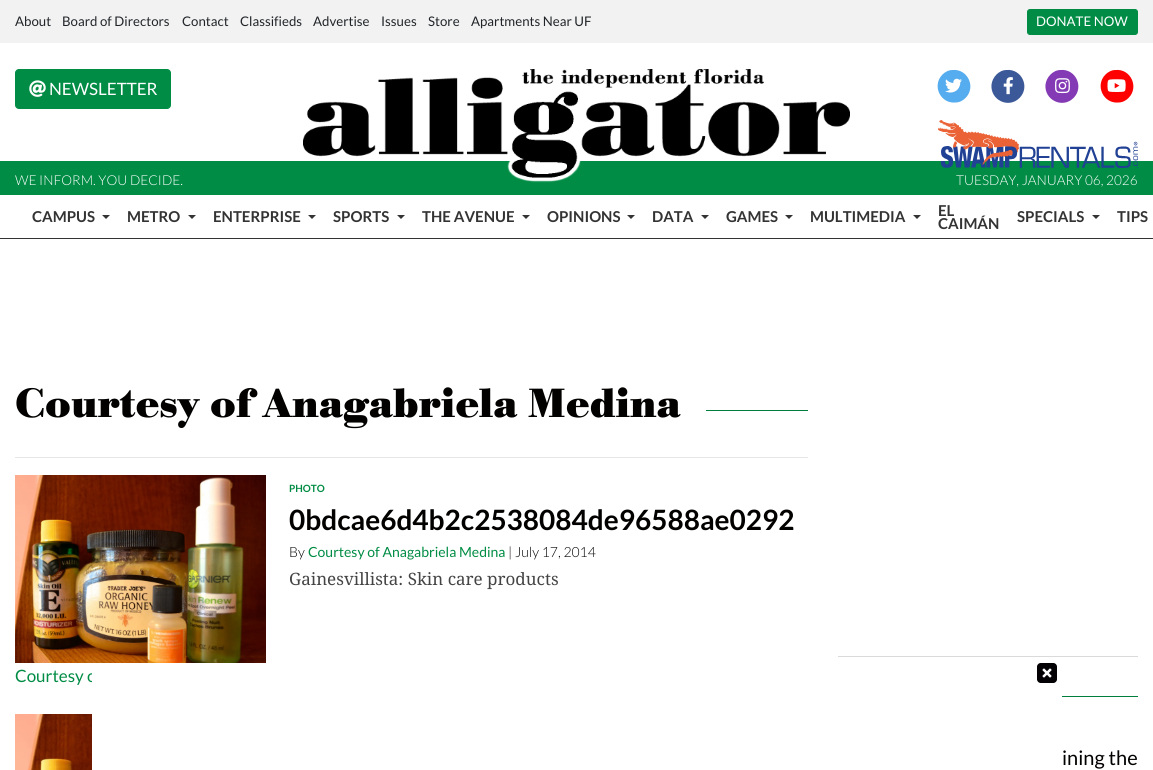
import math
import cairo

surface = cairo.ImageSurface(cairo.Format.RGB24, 1153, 770)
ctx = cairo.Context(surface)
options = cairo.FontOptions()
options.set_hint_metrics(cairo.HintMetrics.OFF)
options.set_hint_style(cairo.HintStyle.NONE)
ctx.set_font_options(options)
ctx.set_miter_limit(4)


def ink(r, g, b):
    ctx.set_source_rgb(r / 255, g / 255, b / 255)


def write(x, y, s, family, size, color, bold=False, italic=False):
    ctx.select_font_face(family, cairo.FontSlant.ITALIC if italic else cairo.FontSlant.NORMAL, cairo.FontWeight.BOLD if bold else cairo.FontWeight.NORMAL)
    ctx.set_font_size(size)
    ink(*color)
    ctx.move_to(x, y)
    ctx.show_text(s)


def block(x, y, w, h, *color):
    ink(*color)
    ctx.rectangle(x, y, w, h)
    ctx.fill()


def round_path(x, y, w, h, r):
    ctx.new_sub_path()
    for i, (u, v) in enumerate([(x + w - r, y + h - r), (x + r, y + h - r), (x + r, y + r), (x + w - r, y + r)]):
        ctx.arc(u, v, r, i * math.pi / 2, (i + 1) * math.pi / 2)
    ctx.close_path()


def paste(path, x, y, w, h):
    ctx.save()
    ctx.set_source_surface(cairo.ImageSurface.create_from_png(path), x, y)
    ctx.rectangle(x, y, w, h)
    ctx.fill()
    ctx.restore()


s1 = dict(family="Lato", size=13.25, color=(33, 37, 41))
s2 = dict(family="Lato", size=13.25, color=(255, 255, 255))
s3 = dict(family="Lato", size=17, color=(255, 255, 255))
s4 = dict(family="Lato Light", size=13.6, color=(255, 255, 255))
s5 = dict(family="Lato", size=15, color=(51, 51, 51), bold=True)
s6 = dict(family="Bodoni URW", size=42.5, color=(2, 1, 0), bold=True)
s7 = dict(family="Lato", size=10, color=(0, 140, 68), bold=True)
s8 = dict(family="Lato", size=28, color=(2, 1, 0), bold=True)
s9 = dict(family="Lato Light", size=14, color=(2, 1, 0))
s10 = dict(family="Lato", size=14, color=(0, 140, 68))
s11 = dict(family="Noto Serif", size=17, color=(68, 68, 68))
s12 = dict(family="Lato", size=17, color=(0, 140, 68))
s13 = dict(family="Lato", size=20, color=(2, 1, 0))

ink(255, 255, 255)
ctx.paint()
block(0, 0, 1153, 43, 242, 242, 242)
write(15, 26, "About", **s1)
write(62, 26, "Board of Directors", **s1)
write(182, 26, "Contact", **s1)
write(240, 26, "Classifieds", **s1)
write(313, 26, "Advertise", **s1)
write(381, 26, "Issues", **s1)
write(428, 26, "Store", **s1)
write(471, 26, "Apartments Near UF", **s1)
ink(0, 140, 68)
round_path(1027.5, 9.5, 110, 25, 2.5)
ctx.fill_preserve()
ctx.set_line_width(1)
ctx.stroke()
write(1036, 26, "DONATE NOW", **s2)
ink(0, 140, 68)
round_path(15.5, 69.5, 155, 39, 3.5)
ctx.fill_preserve()
ctx.stroke()
paste("pic1.png", 29, 80, 17, 17)
write(49, 95, "NEWSLETTER", **s3)
block(0, 161, 1153, 34, 0, 140, 68)
paste("pic2.png", 303, 69, 547, 114)
ink(85, 172, 238)
ctx.new_path()
ctx.move_to(942.5, 74.5)
ctx.curve_to(945, 72, 948.5, 70, 952.5, 70)
ctx.curve_to(967.5, 68.5, 976.5, 87, 965.5, 98)
ctx.curve_to(963, 100.5, 959.5, 102.5, 955.5, 102.5)
ctx.curve_to(940.5, 104, 931.5, 85.5, 942.5, 74.5)
ctx.close_path()
ctx.fill()
paste("pic3.png", 945, 78, 17, 15)
ink(59, 89, 152)
ctx.new_path()
ctx.move_to(996.5, 74.5)
ctx.curve_to(999, 72, 1002.5, 70, 1006.5, 70)
ctx.curve_to(1021.5, 68.5, 1030.5, 87, 1019.5, 98)
ctx.curve_to(1008.5, 109, 990, 100, 991.5, 84.5)
ctx.curve_to(992, 81, 993.5, 77.5, 996.5, 74.5)
ctx.close_path()
ctx.fill()
paste("pic4.png", 1003, 77, 10, 18)
ink(131, 58, 180)
ctx.new_path()
ctx.move_to(1050.5, 74.5)
ctx.curve_to(1053, 72, 1056.5, 70, 1060.5, 70)
ctx.curve_to(1075.5, 68.5, 1084.5, 87, 1073.5, 98)
ctx.curve_to(1062.5, 109, 1044, 100, 1045.5, 84.5)
ctx.curve_to(1046, 81, 1047.5, 77.5, 1050.5, 74.5)
ctx.close_path()
ctx.fill()
paste("pic5.png", 1055, 78, 15, 16)
ink(255, 0, 0)
ctx.new_path()
ctx.move_to(1105.5, 74.5)
ctx.curve_to(1108, 72, 1111.5, 70, 1115.5, 70)
ctx.curve_to(1130.5, 68.5, 1139.5, 87, 1128.5, 98)
ctx.curve_to(1126, 100.5, 1122.5, 102.5, 1118.5, 102.5)
ctx.curve_to(1103.5, 104, 1094.5, 85.5, 1105.5, 74.5)
ctx.close_path()
ctx.fill()
paste("pic6.png", 1107, 79, 19, 13)
paste("pic7.png", 938, 120, 200, 48)
write(15, 185, "WE INFORM. YOU DECIDE.", **s4)
write(956, 185, "TUESDAY, JANUARY 06, 2026", **s4)
block(0, 238, 1153, 1, 51, 51, 51)
write(32, 222, "CAMPUS", **s5)
ctx.new_path()
ctx.move_to(102, 215)
ctx.line_to(110, 215)
ctx.line_to(106, 219)
ctx.close_path()
ctx.fill()
write(127, 222, "METRO", **s5)
ctx.new_path()
ctx.move_to(188, 215)
ctx.line_to(196, 215)
ctx.line_to(192, 219)
ctx.close_path()
ctx.fill()
write(213, 222, "ENTERPRISE", **s5)
ctx.new_path()
ctx.move_to(308, 215)
ctx.line_to(316, 215)
ctx.line_to(312, 219)
ctx.close_path()
ctx.fill()
write(333, 222, "SPORTS", **s5)
ctx.new_path()
ctx.move_to(397, 215)
ctx.line_to(405, 215)
ctx.line_to(401, 219)
ctx.close_path()
ctx.fill()
write(422, 222, "THE AVENUE", **s5)
ctx.new_path()
ctx.move_to(522, 215)
ctx.line_to(530, 215)
ctx.line_to(526, 219)
ctx.close_path()
ctx.fill()
write(547, 222, "OPINIONS", **s5)
ctx.new_path()
ctx.move_to(627, 215)
ctx.line_to(635, 215)
ctx.line_to(631, 219)
ctx.close_path()
ctx.fill()
write(652, 222, "DATA", **s5)
ctx.new_path()
ctx.move_to(701, 215)
ctx.line_to(709, 215)
ctx.line_to(705, 219)
ctx.close_path()
ctx.fill()
write(726, 222, "GAMES", **s5)
ctx.new_path()
ctx.move_to(785, 215)
ctx.line_to(793, 215)
ctx.line_to(789, 219)
ctx.close_path()
ctx.fill()
write(810, 222, "MULTIMEDIA", **s5)
ctx.new_path()
ctx.move_to(913, 215)
ctx.line_to(921, 215)
ctx.line_to(917, 219)
ctx.close_path()
ctx.fill()
write(938, 216, "EL", **s5)
write(938, 229, "CAIMÁN", **s5)
write(1017, 222, "SPECIALS", **s5)
ctx.new_path()
ctx.move_to(1092, 215)
ctx.line_to(1100, 215)
ctx.line_to(1096, 219)
ctx.close_path()
ctx.fill()
write(1117, 222, "TIPS", **s5)
write(15, 417, "Courtesy of Anagabriela Medina", **s6)
block(706, 410, 102, 1, 0, 126, 61)
block(15, 457, 793, 1, 230, 230, 230)
write(289, 492, "PHOTO", **s7)
write(289, 530, "0bdcae6d4b2c2538084de96588ae0292", **s8)
write(289, 557, "By", **s9)
write(308, 557, "Courtesy of Anagabriela Medina", **s10)
write(508, 557, "| July 17, 2014", **s9)
write(289, 585, "Gainesvillista: Skin care products", **s11)
paste("pic8.png", 15, 475, 251, 188)
write(15, 682, "Courtesy o", **s12)
paste("pic9.png", 15, 714, 77, 56)
block(838, 656, 300, 1, 218, 218, 218)
block(1062, 696, 76, 1, 0, 126, 61)
write(1062, 765, "ining the", **s13)
block(92, 673, 4, 10, 255, 255, 255)
paste("pic10.png", 1037, 663, 20, 20)
surface.write_to_png("screenshot.png")
